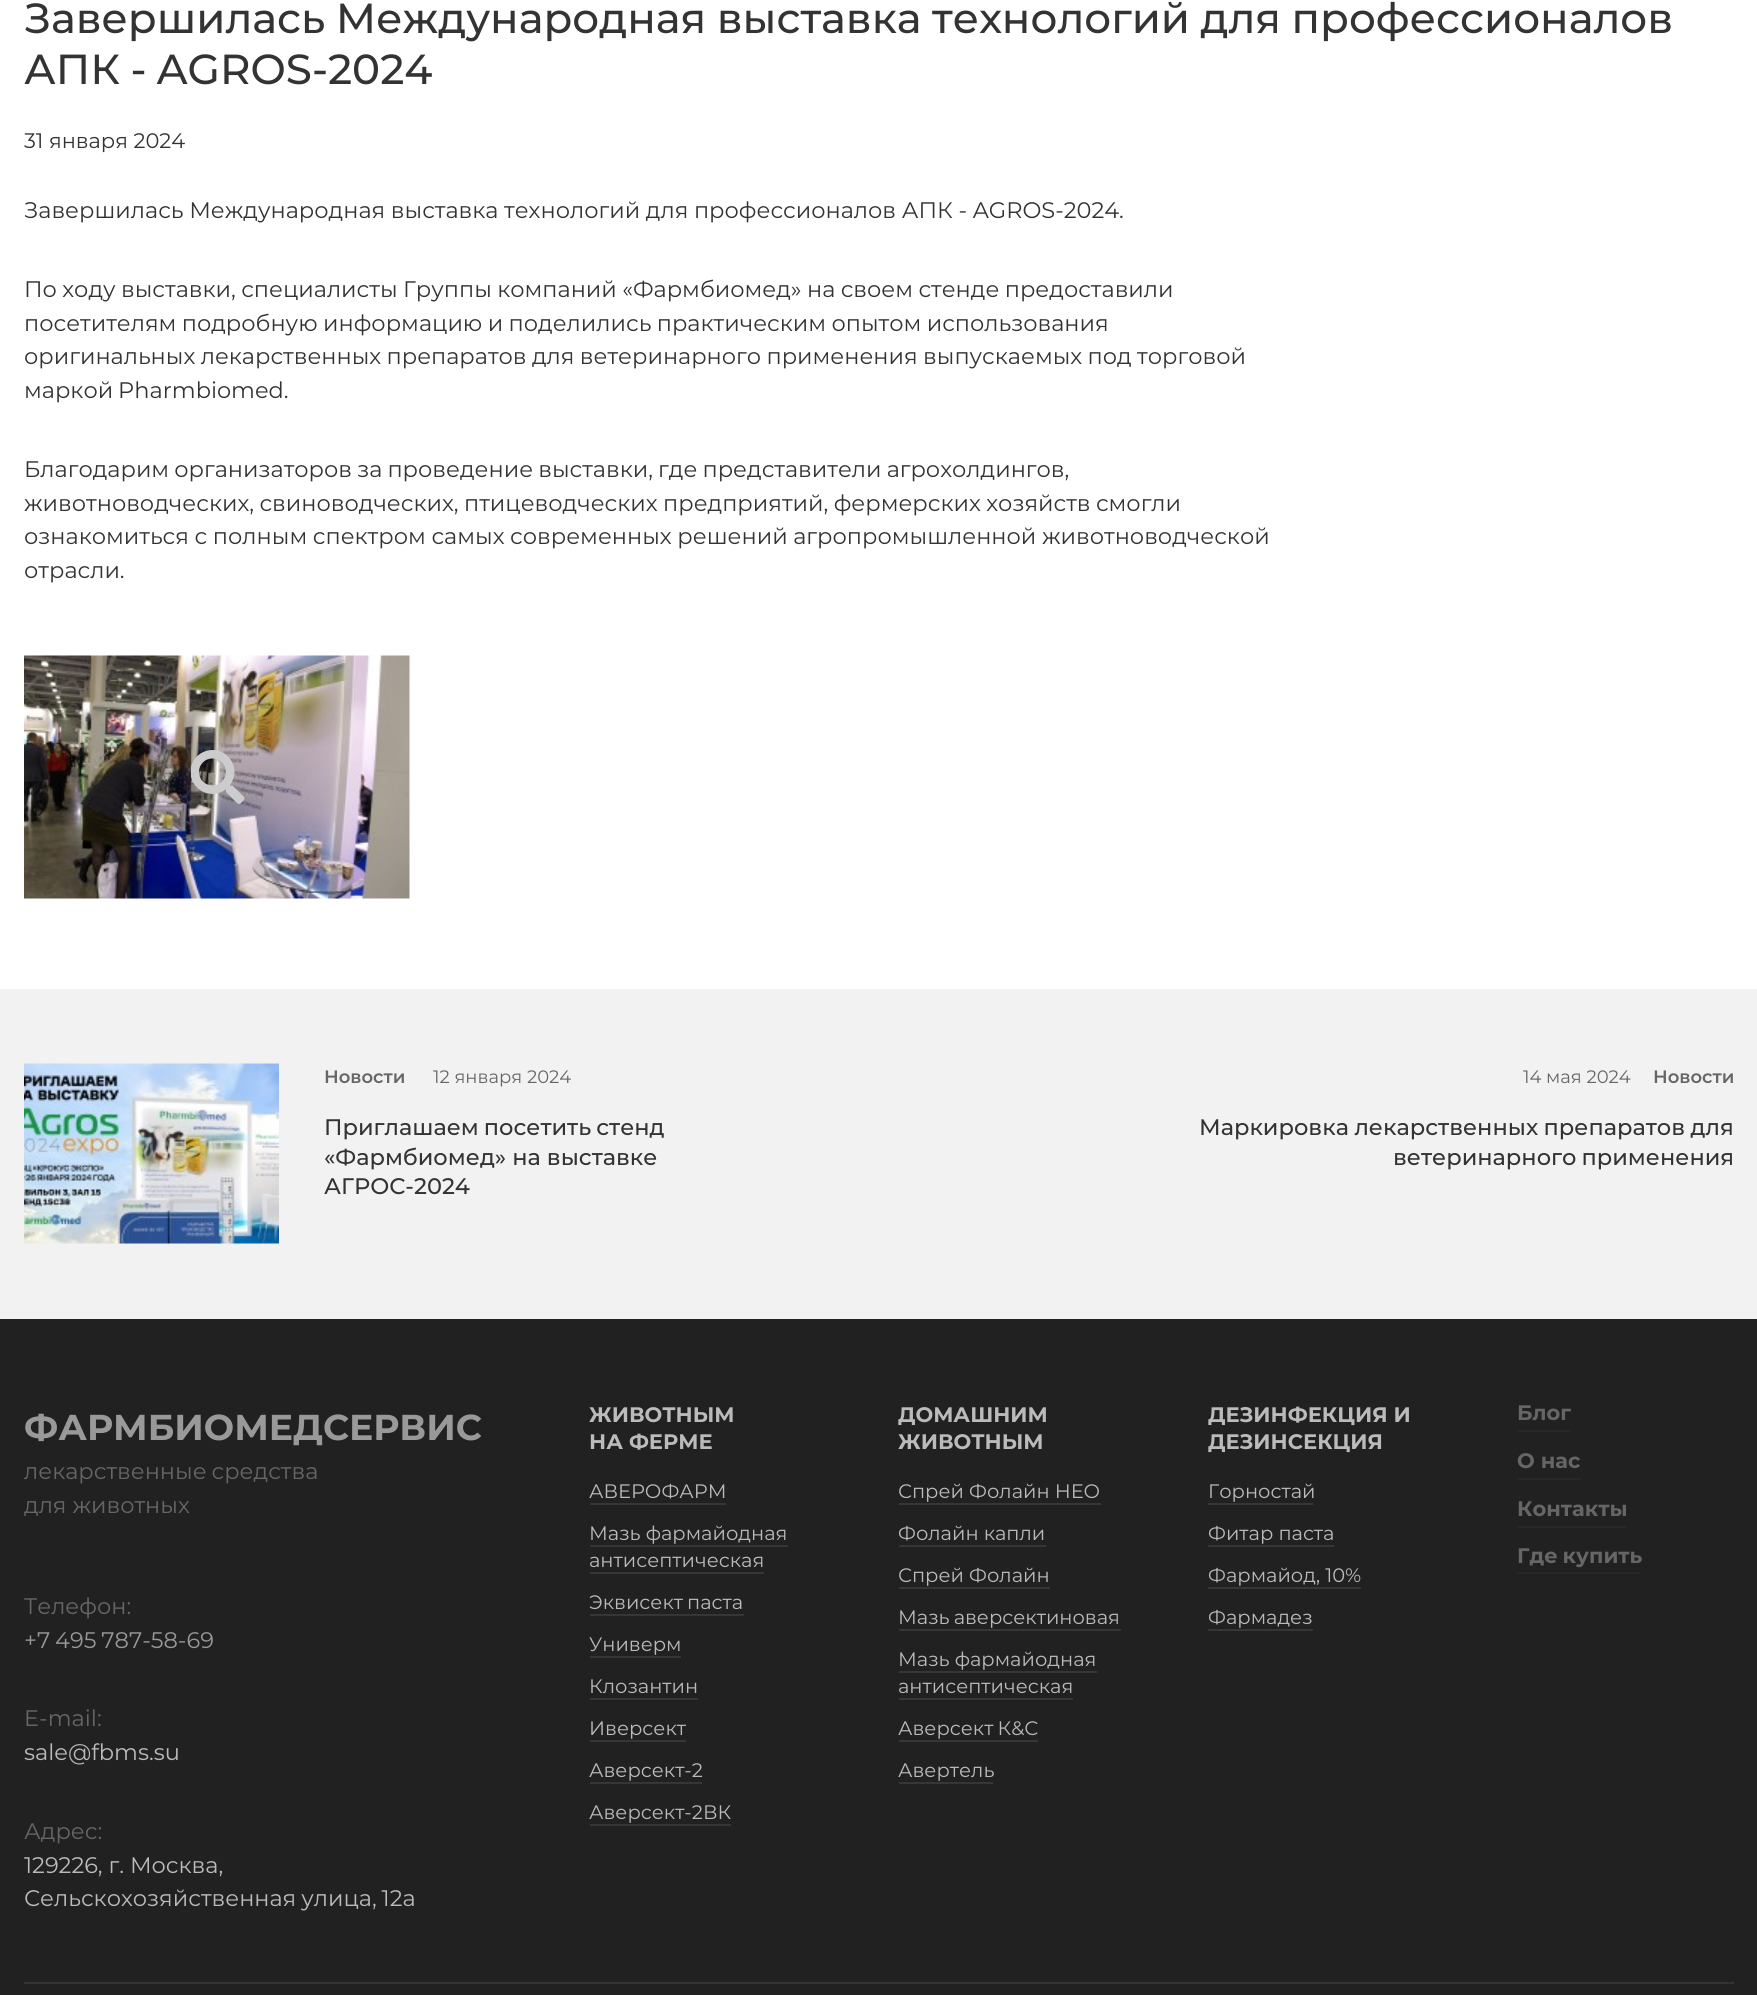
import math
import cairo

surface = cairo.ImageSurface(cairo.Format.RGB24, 1757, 1995)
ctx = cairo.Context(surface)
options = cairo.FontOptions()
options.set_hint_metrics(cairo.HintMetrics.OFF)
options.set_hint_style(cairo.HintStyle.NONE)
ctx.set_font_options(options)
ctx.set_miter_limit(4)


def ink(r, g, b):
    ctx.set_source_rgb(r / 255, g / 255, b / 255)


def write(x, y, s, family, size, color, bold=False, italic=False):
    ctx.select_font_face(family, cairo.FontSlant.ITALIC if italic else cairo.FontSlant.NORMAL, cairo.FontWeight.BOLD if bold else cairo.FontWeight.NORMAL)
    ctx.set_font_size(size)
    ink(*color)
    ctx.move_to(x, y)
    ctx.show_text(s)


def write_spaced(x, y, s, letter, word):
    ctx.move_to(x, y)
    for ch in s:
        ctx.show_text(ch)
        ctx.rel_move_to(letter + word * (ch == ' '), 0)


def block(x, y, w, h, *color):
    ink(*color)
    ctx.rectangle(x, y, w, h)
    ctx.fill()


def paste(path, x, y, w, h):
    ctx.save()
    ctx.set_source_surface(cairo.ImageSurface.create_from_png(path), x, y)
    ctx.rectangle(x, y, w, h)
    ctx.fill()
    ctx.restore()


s1 = dict(family="Montserrat", size=21, color=(51, 51, 51))
s2 = dict(family="Montserrat", size=22.5, color=(51, 51, 51))
s3 = dict(family="Montserrat SemiBold", size=18, color=(102, 102, 102))
s4 = dict(family="Montserrat", size=18, color=(102, 102, 102))
s5 = dict(family="Montserrat Medium", size=22.5, color=(51, 51, 51))
s6 = dict(family="Montserrat", size=36, color=(153, 153, 153), bold=True)
s7 = dict(family="Montserrat", size=22.5, color=(102, 102, 102))
s8 = dict(family="Montserrat", size=22.5, color=(187, 187, 187))
s9 = dict(family="Montserrat", size=21, color=(187, 187, 187), bold=True)
s10 = dict(family="Montserrat", size=19.5, color=(187, 187, 187))
s11 = dict(family="Montserrat", size=21, color=(102, 102, 102), bold=True)

ink(255, 255, 255)
ctx.paint()
ctx.select_font_face("Montserrat Medium")
ctx.set_font_size(42)
ink(51, 51, 51)
write_spaced(24, 33, "Завершилась Международная выставка технологий для профессионалов", 0, -0.75)
write_spaced(24, 84, "АПК - AGROS-2024", 0, -1)
write(24, 148, "31 января 2024", **s1)
ctx.set_font_size(22.5)
write_spaced(24, 218, "Завершилась Международная выставка технологий для профессионалов АПК - AGROS-2024.", 0, -0.25)
write_spaced(24, 297, "По ходу выставки, специалисты Группы компаний «Фармбиомед» на своем стенде предоставили", 0, -0.5)
write_spaced(24, 331, "посетителям подробную информацию и поделились практическим опытом использования", 0, -0.5)
write_spaced(24, 364, "оригинальных лекарственных препаратов для ветеринарного применения выпускаемых под торговой", 0, -0.5)
write_spaced(24, 398, "маркой Pharmbiomed.", 0, -1)
write_spaced(24, 477, "Благодарим организаторов за проведение выставки, где представители агрохолдингов,", 0, -0.75)
write_spaced(24, 511, "животноводческих, свиноводческих, птицеводческих предприятий, фермерских хозяйств смогли", 0, -0.5)
write_spaced(24, 544, "ознакомиться с полным спектром самых современных решений агропромышленной животноводческой", 0, -0.25)
write(24, 578, "отрасли.", **s2)
paste("pic1.png", 24, 655, 386, 244)
paste("pic2.png", 191, 750, 54, 54)
block(0, 989, 1757, 330, 242, 242, 242)
paste("pic3.png", 24, 1063, 255, 181)
write(324, 1083, "Новости", **s3)
write(433, 1083, "12 января 2024", **s4)
ctx.select_font_face("Montserrat Medium")
ctx.set_font_size(22.5)
ink(51, 51, 51)
write_spaced(324, 1135, "Приглашаем посетить стенд", 0, -1)
write(324, 1165, "«Фармбиомед» на выставке", **s5)
write(324, 1194, "АГРОС-2024", **s5)
write(1523, 1083, "14 мая 2024", **s4)
write(1653, 1083, "Новости", **s3)
ctx.select_font_face("Montserrat Medium")
ctx.set_font_size(22.5)
ink(51, 51, 51)
write_spaced(1199, 1135, "Маркировка лекарственных препаратов для", 0, -0.5)
write_spaced(1393, 1165, "ветеринарного применения", 0, -1)
block(0, 1319, 1757, 676, 33, 33, 33)
write(24, 1440, "ФАРМБИОМЕДСЕРВИС", **s6)
ctx.select_font_face("Montserrat")
ctx.set_font_size(22.5)
ink(102, 102, 102)
write_spaced(24, 1479, "лекарственные средства", 0, -1)
write(24, 1513, "для животных", **s7)
write(24, 1614, "Телефон:", **s7)
ink(153, 153, 153)
write_spaced(24, 1648, "+7 495 787-58-69", 0, -1)
write(24, 1726, "E-mail:", **s7)
write(24, 1760, "sale@fbms.su", **s8)
write(24, 1839, "Адрес:", **s7)
write(24, 1873, "129226, г. Москва,", **s8)
write_spaced(24, 1906, "Сельскохозяйственная улица, 12а", 0, -1)
write(589, 1422, "ЖИВОТНЫМ", **s9)
write(589, 1449, "НА ФЕРМЕ", **s9)
write(589, 1498, "АВЕРОФАРМ", **s10)
block(590, 1503, 136, 2, 54, 54, 54)
write(589, 1540, "Мазь фармайодная", **s10)
block(590, 1545, 198, 2, 54, 54, 54)
write(589, 1567, "антисептическая", **s10)
block(590, 1572, 174, 2, 54, 54, 54)
ink(187, 187, 187)
write_spaced(589, 1609, "Эквисект паста", 0, -1)
block(590, 1614, 154, 2, 54, 54, 54)
write(589, 1651, "Универм", **s10)
block(590, 1656, 91, 2, 54, 54, 54)
write(589, 1693, "Клозантин", **s10)
block(590, 1698, 108, 2, 54, 54, 54)
write(589, 1735, "Иверсект", **s10)
block(590, 1740, 96, 2, 54, 54, 54)
write(589, 1777, "Аверсект-2", **s10)
block(590, 1782, 112, 2, 54, 54, 54)
write(589, 1819, "Аверсект-2ВК", **s10)
block(590, 1824, 141, 2, 54, 54, 54)
write(898, 1422, "ДОМАШНИМ", **s9)
write(898, 1449, "ЖИВОТНЫМ", **s9)
write(898, 1498, "Спрей Фолайн НЕО", **s10)
block(899, 1503, 202, 2, 54, 54, 54)
write(898, 1540, "Фолайн капли", **s10)
block(899, 1545, 147, 2, 54, 54, 54)
write(898, 1582, "Спрей Фолайн", **s10)
block(899, 1587, 151, 2, 54, 54, 54)
ink(187, 187, 187)
write_spaced(898, 1624, "Мазь аверсектиновая", 0, -1)
block(899, 1629, 222, 2, 54, 54, 54)
write(898, 1666, "Мазь фармайодная", **s10)
block(899, 1671, 198, 2, 54, 54, 54)
write(898, 1693, "антисептическая", **s10)
block(899, 1698, 174, 2, 54, 54, 54)
ink(187, 187, 187)
write_spaced(898, 1735, "Аверсект К&С", 0, -1)
block(899, 1740, 139, 2, 54, 54, 54)
write(898, 1777, "Авертель", **s10)
block(899, 1782, 94, 2, 54, 54, 54)
write(1208, 1422, "ДЕЗИНФЕКЦИЯ И", **s9)
write(1208, 1449, "ДЕЗИНСЕКЦИЯ", **s9)
write(1208, 1498, "Горностай", **s10)
block(1208, 1503, 105, 2, 54, 54, 54)
write(1208, 1540, "Фитар паста", **s10)
block(1208, 1545, 126, 2, 54, 54, 54)
write(1208, 1582, "Фармайод, 10%", **s10)
block(1208, 1587, 153, 2, 54, 54, 54)
write(1208, 1624, "Фармадез", **s10)
block(1208, 1629, 105, 2, 54, 54, 54)
write(1517, 1420, "Блог", **s11)
block(1517, 1430, 54, 2, 40, 40, 40)
write(1517, 1468, "О нас", **s11)
block(1517, 1478, 64, 2, 40, 40, 40)
write(1517, 1516, "Контакты", **s11)
block(1517, 1526, 109, 2, 40, 40, 40)
ink(102, 102, 102)
write_spaced(1517, 1563, "Где купить", 0, -1)
block(1517, 1572, 123, 2, 40, 40, 40)
block(24, 1982, 1710, 2, 51, 51, 51)
surface.write_to_png("screenshot.png")
